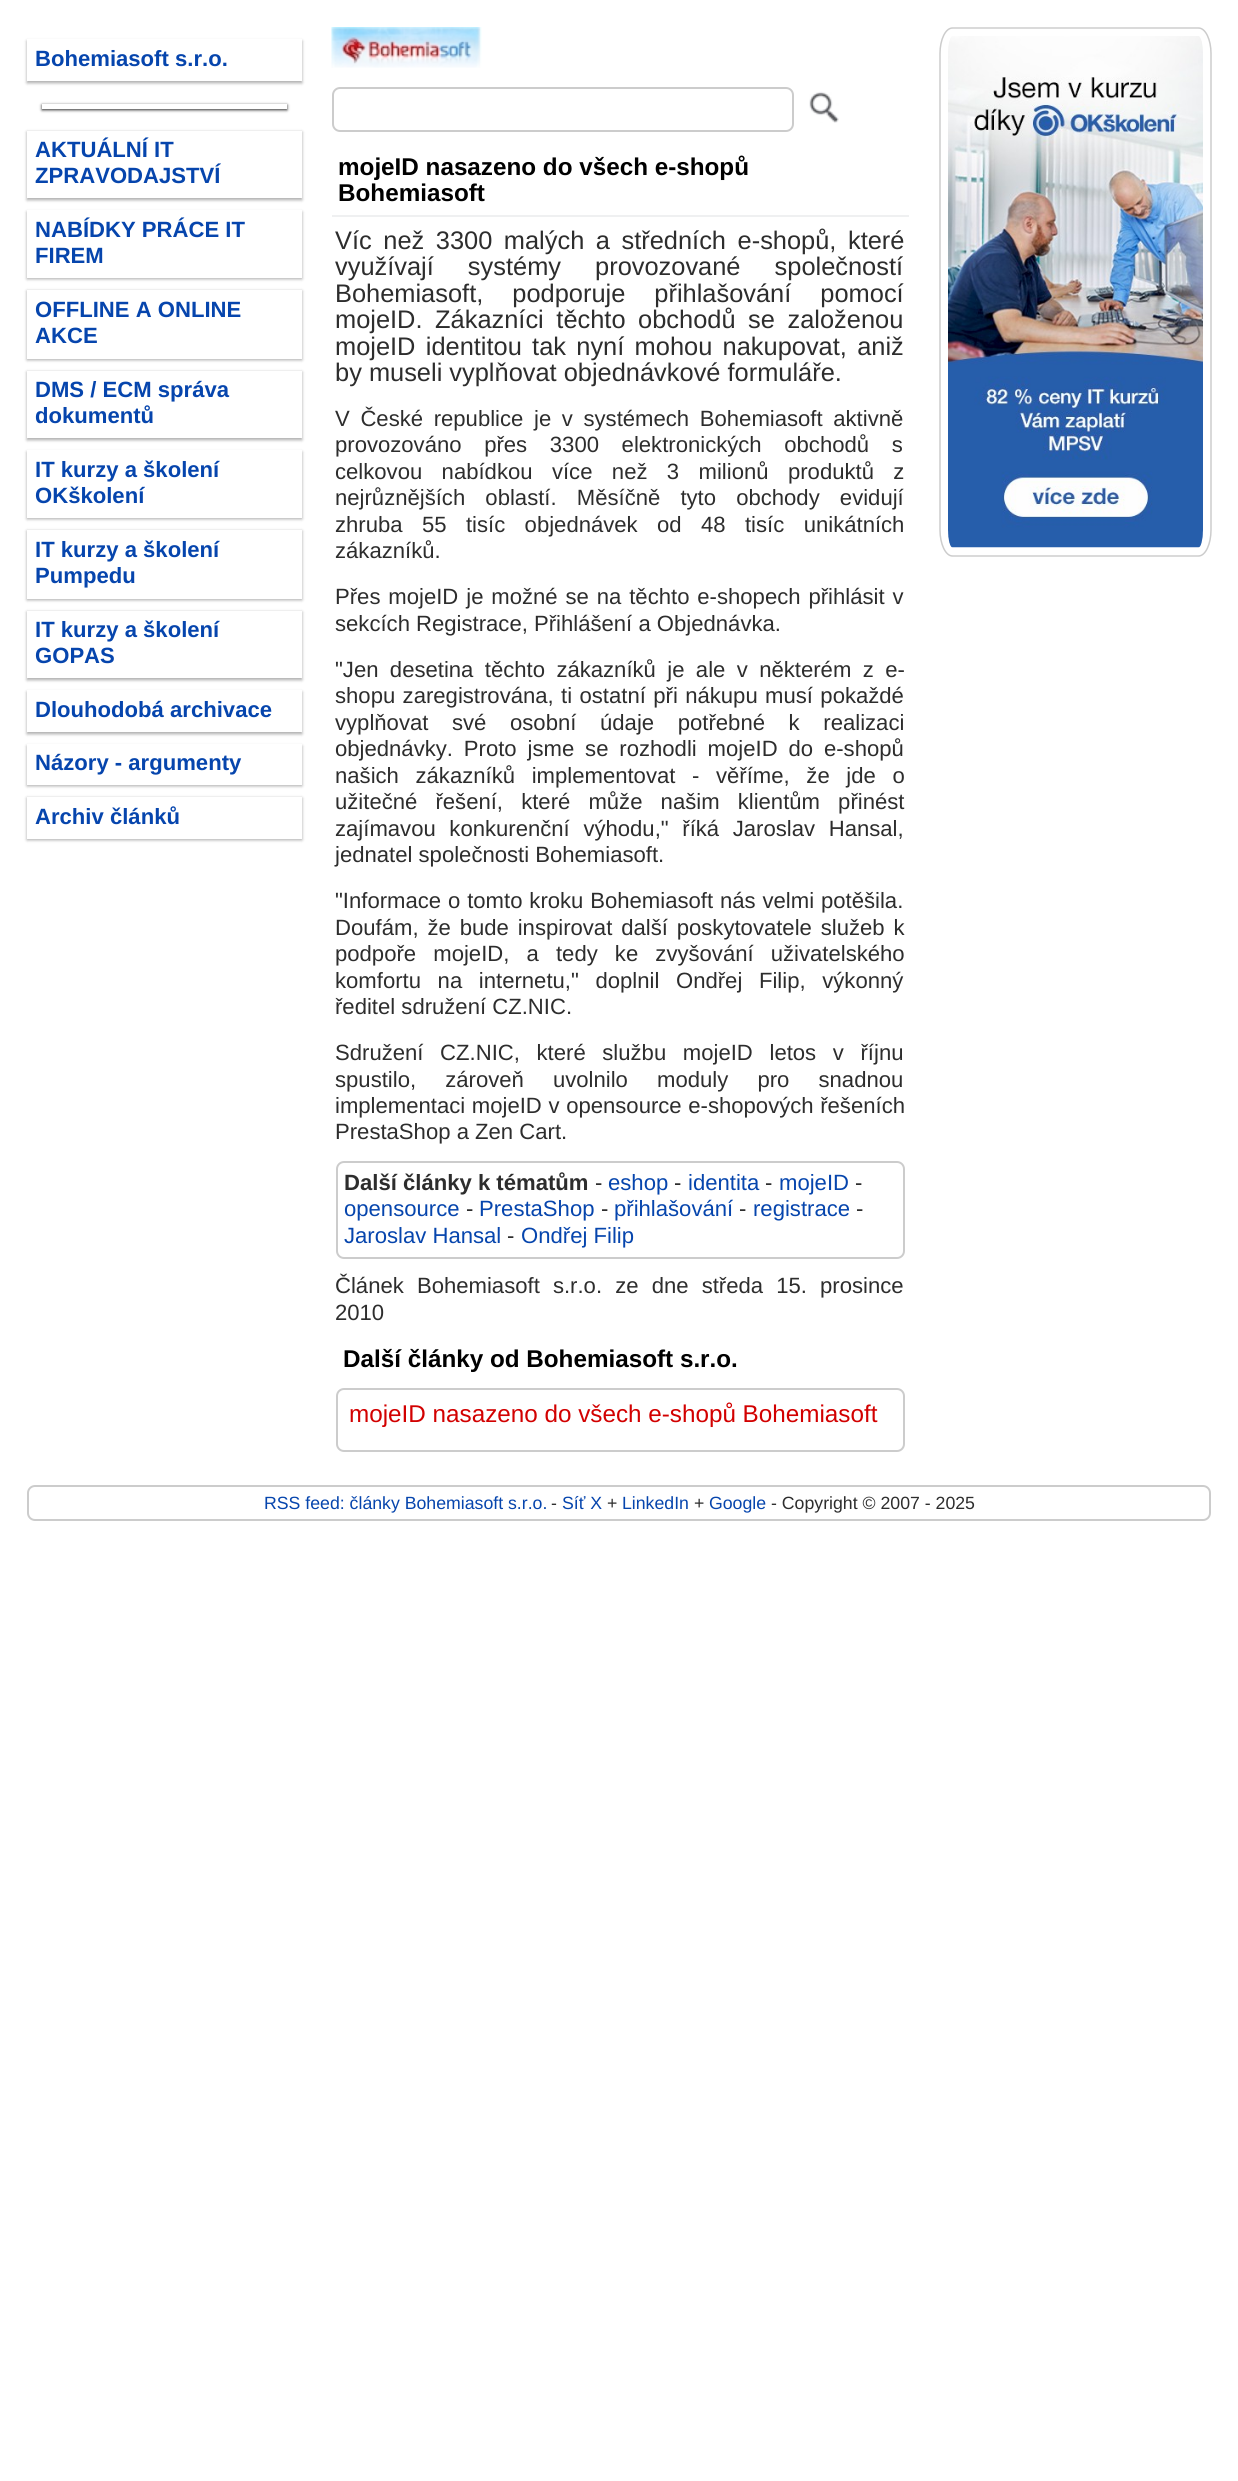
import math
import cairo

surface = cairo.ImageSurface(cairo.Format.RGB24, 1238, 2481)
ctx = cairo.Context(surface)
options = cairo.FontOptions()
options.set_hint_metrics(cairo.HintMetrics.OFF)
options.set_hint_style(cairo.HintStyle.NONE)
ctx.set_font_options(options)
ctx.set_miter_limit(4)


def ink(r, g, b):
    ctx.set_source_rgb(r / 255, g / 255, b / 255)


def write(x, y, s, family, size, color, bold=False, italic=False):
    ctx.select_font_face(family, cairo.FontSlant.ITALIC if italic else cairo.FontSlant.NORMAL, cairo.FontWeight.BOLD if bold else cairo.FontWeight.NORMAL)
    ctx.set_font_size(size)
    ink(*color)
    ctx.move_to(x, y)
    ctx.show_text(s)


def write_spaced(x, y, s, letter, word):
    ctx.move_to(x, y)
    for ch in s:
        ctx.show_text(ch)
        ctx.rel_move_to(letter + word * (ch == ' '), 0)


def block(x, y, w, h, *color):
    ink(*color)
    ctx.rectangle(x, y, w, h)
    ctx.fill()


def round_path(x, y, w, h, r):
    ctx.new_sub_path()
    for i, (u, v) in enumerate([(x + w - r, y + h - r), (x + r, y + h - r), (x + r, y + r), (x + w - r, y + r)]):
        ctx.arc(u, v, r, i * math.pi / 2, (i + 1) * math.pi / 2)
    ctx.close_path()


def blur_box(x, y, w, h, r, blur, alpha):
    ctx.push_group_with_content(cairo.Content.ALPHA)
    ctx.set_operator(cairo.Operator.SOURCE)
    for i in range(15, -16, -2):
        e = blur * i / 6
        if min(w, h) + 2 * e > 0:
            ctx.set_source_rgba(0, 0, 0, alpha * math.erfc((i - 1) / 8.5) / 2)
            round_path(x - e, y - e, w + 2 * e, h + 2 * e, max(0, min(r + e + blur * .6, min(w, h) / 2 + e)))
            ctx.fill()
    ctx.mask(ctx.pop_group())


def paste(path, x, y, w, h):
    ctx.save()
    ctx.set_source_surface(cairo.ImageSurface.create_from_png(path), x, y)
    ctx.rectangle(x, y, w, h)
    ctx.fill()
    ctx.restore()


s1 = dict(family="Liberation Sans", size=22.1, color=(6, 69, 173), bold=True)
s2 = dict(family="Liberation Sans", size=24.25, color=(0, 0, 0), bold=True)
s3 = dict(family="Liberation Sans", size=25.4, color=(45, 45, 45))
s4 = dict(family="Liberation Sans", size=22.1, color=(45, 45, 45))
s5 = dict(family="Liberation Sans", size=22.1, color=(45, 45, 45), bold=True)
s6 = dict(family="Liberation Sans", size=22.1, color=(6, 69, 173))
s7 = dict(family="Liberation Sans", size=24.25, color=(210, 0, 0))
s8 = dict(family="Liberation Sans", size=17.7, color=(6, 69, 173))
s9 = dict(family="Liberation Sans", size=17.7, color=(45, 45, 45))

ink(255, 255, 255)
ctx.paint()
ink(0, 0, 0)
blur_box(27, 41, 275, 42, 0, 1.5, 0.24)
blur_box(27, 41, 275, 42, 0, 2, 0.12)
block(27, 39, 275, 42, 255, 255, 255)
write(35, 66, "Bohemiasoft s.r.o.", **s1)
ink(45, 45, 45)
blur_box(42, 105, 245, 5, 0, 1.5, 1)
block(42, 104, 245, 5, 255, 255, 255)
ink(0, 0, 0)
blur_box(27, 132, 275, 68, 0, 1.5, 0.24)
blur_box(27, 132, 275, 68, 0, 2, 0.12)
block(27, 131, 275, 67, 255, 255, 255)
write(35, 157, "AKTUÁLNÍ IT", **s1)
write(35, 183, "ZPRAVODAJSTVÍ", **s1)
ink(0, 0, 0)
blur_box(27, 212, 275, 67, 0, 1.5, 0.24)
blur_box(27, 212, 275, 67, 0, 2, 0.12)
block(27, 210, 275, 68, 255, 255, 255)
write(35, 237, "NABÍDKY PRÁCE IT", **s1)
write(35, 263, "FIREM", **s1)
ink(0, 0, 0)
blur_box(27, 291, 275, 69, 0, 1.5, 0.24)
blur_box(27, 291, 275, 69, 0, 2, 0.12)
block(27, 290, 275, 69, 255, 255, 255)
write(35, 317, "OFFLINE A ONLINE", **s1)
write(35, 343, "AKCE", **s1)
ink(0, 0, 0)
blur_box(27, 372, 275, 68, 0, 1.5, 0.24)
blur_box(27, 372, 275, 68, 0, 2, 0.12)
block(27, 371, 275, 67, 255, 255, 255)
write(35, 397, "DMS / ECM správa", **s1)
write(35, 423, "dokumentů", **s1)
ink(0, 0, 0)
blur_box(27, 452, 275, 67, 0, 1.5, 0.24)
blur_box(27, 452, 275, 67, 0, 2, 0.12)
block(27, 450, 275, 68, 255, 255, 255)
write(35, 477, "IT kurzy a školení", **s1)
write(35, 503, "OKškolení", **s1)
ink(0, 0, 0)
blur_box(27, 531, 275, 69, 0, 1.5, 0.24)
blur_box(27, 531, 275, 69, 0, 2, 0.12)
block(27, 530, 275, 69, 255, 255, 255)
write(35, 557, "IT kurzy a školení", **s1)
write(35, 583, "Pumpedu", **s1)
ink(0, 0, 0)
blur_box(27, 612, 275, 68, 0, 1.5, 0.24)
blur_box(27, 612, 275, 68, 0, 2, 0.12)
block(27, 611, 275, 67, 255, 255, 255)
write(35, 637, "IT kurzy a školení", **s1)
write(35, 663, "GOPAS", **s1)
ink(0, 0, 0)
blur_box(27, 692, 275, 42, 0, 1.5, 0.24)
blur_box(27, 692, 275, 42, 0, 2, 0.12)
block(27, 690, 275, 42, 255, 255, 255)
write(35, 717, "Dlouhodobá archivace", **s1)
ink(0, 0, 0)
blur_box(27, 746, 275, 40, 0, 1.5, 0.24)
blur_box(27, 746, 275, 40, 0, 2, 0.12)
block(27, 744, 275, 41, 255, 255, 255)
write(35, 770, "Názory - argumenty", **s1)
ink(0, 0, 0)
blur_box(27, 798, 275, 42, 0, 1.5, 0.24)
blur_box(27, 798, 275, 42, 0, 2, 0.12)
block(27, 797, 275, 42, 255, 255, 255)
write(35, 824, "Archiv článků", **s1)
paste("pic1.png", 331, 27, 151, 41)
round_path(333, 88, 460, 43, 7)
ink(204, 204, 204)
ctx.stroke()
paste("pic2.png", 809, 91, 30, 32)
block(332, 215, 577, 2, 239, 240, 241)
write(338, 175, "mojeID nasazeno do všech e-shopů", **s2)
write(338, 201, "Bohemiasoft", **s2)
ctx.select_font_face("Liberation Sans")
ctx.set_font_size(25.4)
ink(45, 45, 45)
write_spaced(335, 249, "Víc než 3300 malých a středních e-shopů, které", 0, 4.5)
write_spaced(335, 275, "využívají systémy provozované společností", 0, 27)
write_spaced(335, 302, "Bohemiasoft, podporuje přihlašování pomocí", 0, 22)
write_spaced(335, 328, "mojeID. Zákazníci těchto obchodů se založenou", 0, 5.5)
write_spaced(335, 355, "mojeID identitou tak nyní mohou nakupovat, aniž", 0, 3.25)
write(335, 381, "by museli vyplňovat objednávkové formuláře.", **s3)
ctx.set_font_size(22.1)
write_spaced(335, 426, "V České republice je v systémech Bohemiasoft aktivně", 0, 4.5)
write_spaced(335, 452, "provozováno přes 3300 elektronických obchodů s", 0, 16.5)
write_spaced(335, 479, "celkovou nabídkou více než 3 milionů produktů z", 0, 13.25)
write_spaced(335, 505, "nejrůznějších oblastí. Měsíčně tyto obchody evidují", 0, 14)
write_spaced(335, 532, "zhruba 55 tisíc objednávek od 48 tisíc unikátních", 0, 13.25)
write(335, 558, "zákazníků.", **s4)
write_spaced(335, 604, "Přes mojeID je možné se na těchto e-shopech přihlásit v", 0, 1.75)
write(335, 631, "sekcích Registrace, Přihlášení a Objednávka.", **s4)
write_spaced(335, 677, "\"Jen desetina těchto zákazníků je ale v některém z e-", 0, 5.25)
write_spaced(335, 703, "shopu zaregistrována, ti ostatní při nákupu musí pokaždé", 0, 1.25)
write_spaced(335, 730, "vyplňovat své osobní údaje potřebné k realizaci", 0, 17.5)
write_spaced(335, 756, "objednávky. Proto jsme se rozhodli mojeID do e-shopů", 0, 4.75)
write_spaced(335, 783, "našich zákazníků implementovat - věříme, že jde o", 0, 10.5)
write_spaced(335, 809, "užitečné řešení, které může našim klientům přinést", 0, 12)
write_spaced(335, 836, "zajímavou konkurenční výhodu,\" říká Jaroslav Hansal,", 0, 7.5)
write(335, 862, "jednatel společnosti Bohemiasoft.", **s4)
write_spaced(335, 908, "\"Informace o tomto kroku Bohemiasoft nás velmi potěšila.", 0, 0.75)
write_spaced(335, 935, "Doufám, že bude inspirovat další poskytovatele služeb k", 0, 2.75)
write_spaced(335, 961, "podpoře mojeID, a tedy ke zvyšování uživatelského", 0, 11)
write_spaced(335, 988, "komfortu na internetu,\" doplnil Ondřej Filip, výkonný", 0, 10.5)
write(335, 1014, "ředitel sdružení CZ.NIC.", **s4)
write_spaced(335, 1060, "Sdružení CZ.NIC, které službu mojeID letos v říjnu", 0, 10.5)
write_spaced(335, 1087, "spustilo, zároveň uvolnilo moduly pro snadnou", 0, 23)
write_spaced(335, 1113, "implementaci mojeID v opensource e-shopových řešeních", 0, 0.5)
write(335, 1139, "PrestaShop a Zen Cart.", **s4)
round_path(337, 1162, 567, 96, 7)
ink(204, 204, 204)
ctx.stroke()
write(344, 1190, "Další články k tématům", **s5)
write(595, 1190, "-", **s4)
write(608, 1190, "eshop", **s6)
write(674, 1190, "-", **s4)
write(688, 1190, "identita", **s6)
write(765, 1190, "-", **s4)
write(779, 1190, "mojeID", **s6)
write(855, 1190, "-", **s4)
write(344, 1216, "opensource", **s6)
write(466, 1216, "-", **s4)
write(479, 1216, "PrestaShop", **s6)
write(601, 1216, "-", **s4)
write(614, 1216, "přihlašování", **s6)
write(739, 1216, "-", **s4)
write(753, 1216, "registrace", **s6)
write(856, 1216, "-", **s4)
write(344, 1243, "Jaroslav Hansal", **s6)
write(507, 1243, "-", **s4)
write(521, 1243, "Ondřej Filip", **s6)
ink(45, 45, 45)
write_spaced(335, 1293, "Článek Bohemiasoft s.r.o. ze dne středa 15.", 0, 7)
write(820, 1293, "prosince", **s4)
write(335, 1320, "2010", **s4)
write(343, 1367, "Další články od Bohemiasoft s.r.o.", **s2)
round_path(337, 1389, 567, 62, 7)
ink(204, 204, 204)
ctx.stroke()
write(349, 1422, "mojeID nasazeno do všech e-shopů Bohemiasoft", **s7)
ctx.new_path()
ctx.move_to(952.5, 28)
ctx.line_to(1198.5, 28)
ctx.curve_to(1205.5, 28, 1211, 39.5, 1211, 53.5)
ctx.line_to(1211, 530)
ctx.curve_to(1211, 544, 1205.5, 556, 1198.5, 556)
ctx.line_to(952.5, 556)
ctx.curve_to(945.5, 556, 940, 544, 940, 530)
ctx.line_to(940, 53.5)
ctx.curve_to(940, 39.5, 945.5, 28, 952.5, 28)
ctx.close_path()
ink(204, 204, 204)
ctx.set_line_width(1.5)
ctx.stroke()
paste("pic3.png", 948, 36, 255, 512)
round_path(28, 1486, 1182, 34, 7)
ctx.set_line_width(2)
ctx.stroke()
write(264, 1509, "RSS feed: články Bohemiasoft s.r.o.", **s8)
write(551, 1509, "-", **s9)
write(562, 1509, "Síť X", **s8)
write(607, 1509, "+", **s9)
write(622, 1509, "LinkedIn", **s8)
write(694, 1509, "+", **s9)
write(709, 1509, "Google", **s8)
write(771, 1509, "- Copyright © 2007 - 2025", **s9)
surface.write_to_png("screenshot.png")
